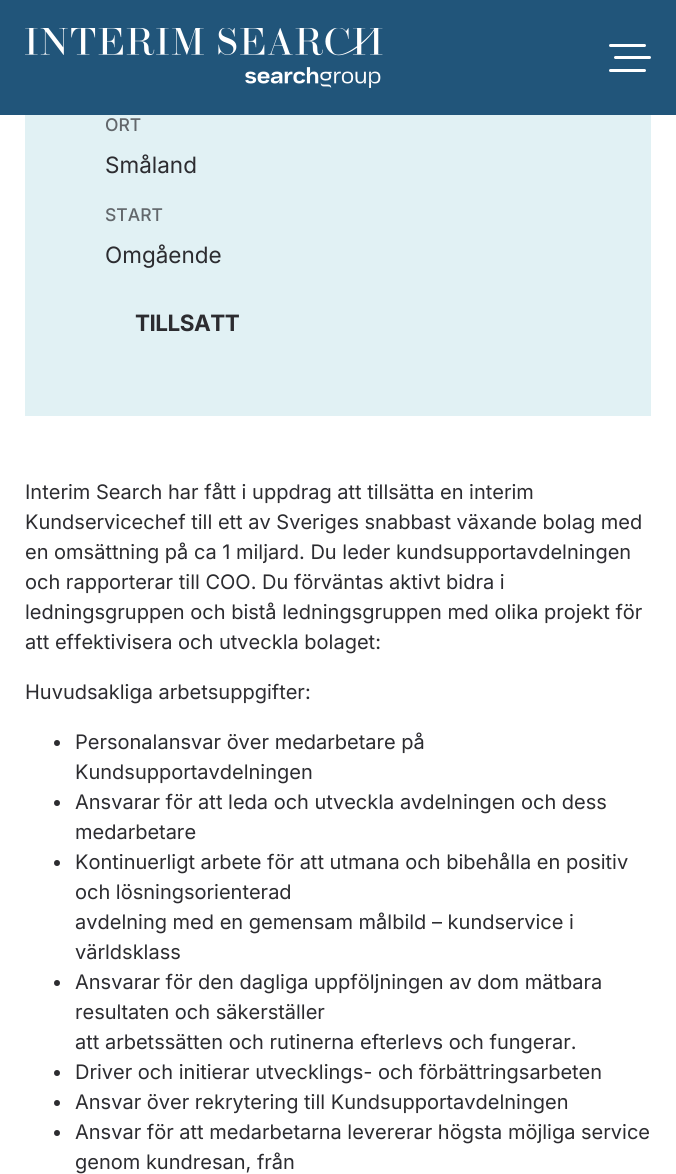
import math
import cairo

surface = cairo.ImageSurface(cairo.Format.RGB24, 676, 1174)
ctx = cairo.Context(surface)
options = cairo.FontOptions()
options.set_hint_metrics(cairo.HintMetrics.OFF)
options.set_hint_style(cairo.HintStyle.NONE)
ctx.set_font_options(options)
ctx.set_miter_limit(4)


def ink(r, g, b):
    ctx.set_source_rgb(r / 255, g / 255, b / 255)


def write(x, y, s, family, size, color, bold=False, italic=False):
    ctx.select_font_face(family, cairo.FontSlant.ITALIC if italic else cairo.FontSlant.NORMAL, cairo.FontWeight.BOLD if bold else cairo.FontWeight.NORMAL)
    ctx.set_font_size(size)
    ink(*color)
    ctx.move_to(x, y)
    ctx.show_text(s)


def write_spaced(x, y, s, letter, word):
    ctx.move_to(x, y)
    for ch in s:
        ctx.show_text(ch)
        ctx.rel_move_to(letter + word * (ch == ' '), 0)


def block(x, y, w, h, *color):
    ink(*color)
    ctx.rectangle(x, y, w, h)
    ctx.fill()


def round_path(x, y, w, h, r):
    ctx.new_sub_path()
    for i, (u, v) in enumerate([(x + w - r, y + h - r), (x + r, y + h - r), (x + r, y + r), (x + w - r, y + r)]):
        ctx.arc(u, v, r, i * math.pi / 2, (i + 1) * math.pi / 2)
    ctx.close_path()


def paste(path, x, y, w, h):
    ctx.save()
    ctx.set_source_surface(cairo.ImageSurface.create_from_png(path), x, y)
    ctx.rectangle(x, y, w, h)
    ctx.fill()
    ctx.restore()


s1 = dict(family="Inter Medium", size=17.5, color=(98, 103, 107))
s2 = dict(family="Inter", size=22.5, color=(44, 44, 48))
s3 = dict(family="Inter", size=20, color=(44, 44, 48))

ink(255, 255, 255)
ctx.paint()
block(0, 0, 676, 115, 33, 85, 122)
paste("pic1.png", 25, 28, 358, 60)
ink(255, 255, 255)
round_path(609, 44, 37, 3, 1.5)
ctx.fill()
round_path(614, 56, 37, 3, 1.5)
ctx.fill()
round_path(609, 69, 37, 3, 1.5)
ctx.fill()
block(25, 115, 626, 301, 225, 241, 244)
write(105, 131, "ORT", **s1)
write(105, 173, "Småland", **s2)
write(105, 221, "START", **s1)
write(105, 263, "Omgående", **s2)
ctx.select_font_face("Inter", cairo.FontSlant.NORMAL, cairo.FontWeight.BOLD)
write_spaced(135, 331, "TILLSATT", -0.5, 0)
write(25, 499, "Interim Search har fått i uppdrag att tillsätta en interim", **s3)
write(25, 529, "Kundservicechef till ett av Sveriges snabbast växande bolag med", **s3)
write(25, 559, "en omsättning på ca 1 miljard. Du leder kundsupportavdelningen", **s3)
write(25, 589, "och rapporterar till COO. Du förväntas aktivt bidra i", **s3)
write(25, 619, "ledningsgruppen och bistå ledningsgruppen med olika projekt för", **s3)
write(25, 649, "att effektivisera och utveckla bolaget:", **s3)
write(25, 699, "Huvudsakliga arbetsuppgifter:", **s3)
ctx.new_path()
ctx.arc(57, 743, 3, 0, 2 * math.pi)
ctx.fill()
write(75, 749, "Personalansvar över medarbetare på", **s3)
write(75, 779, "Kundsupportavdelningen", **s3)
ctx.new_path()
ctx.arc(57, 803, 3, 0, 2 * math.pi)
ctx.fill()
write(75, 809, "Ansvarar för att leda och utveckla avdelningen och dess", **s3)
write(75, 839, "medarbetare", **s3)
ctx.new_path()
ctx.arc(57, 863, 3, 0, 2 * math.pi)
ctx.fill()
write(75, 869, "Kontinuerligt arbete för att utmana och bibehålla en positiv", **s3)
write(75, 899, "och lösningsorienterad", **s3)
write(75, 929, "avdelning med en gemensam målbild – kundservice i", **s3)
write(75, 959, "världsklass", **s3)
ctx.new_path()
ctx.arc(57, 983, 3, 0, 2 * math.pi)
ctx.fill()
write(75, 989, "Ansvarar för den dagliga uppföljningen av dom mätbara", **s3)
write(75, 1019, "resultaten och säkerställer", **s3)
write(75, 1049, "att arbetssätten och rutinerna efterlevs och fungerar.", **s3)
ctx.new_path()
ctx.arc(57, 1073, 3, 0, 2 * math.pi)
ctx.fill()
write(75, 1079, "Driver och initierar utvecklings- och förbättringsarbeten", **s3)
ctx.new_path()
ctx.arc(57, 1103, 3, 0, 2 * math.pi)
ctx.fill()
write(75, 1109, "Ansvar över rekrytering till Kundsupportavdelningen", **s3)
ctx.new_path()
ctx.arc(57, 1133, 3, 0, 2 * math.pi)
ctx.fill()
write(75, 1139, "Ansvar för att medarbetarna levererar högsta möjliga service", **s3)
write(75, 1169, "genom kundresan, från", **s3)
surface.write_to_png("screenshot.png")
